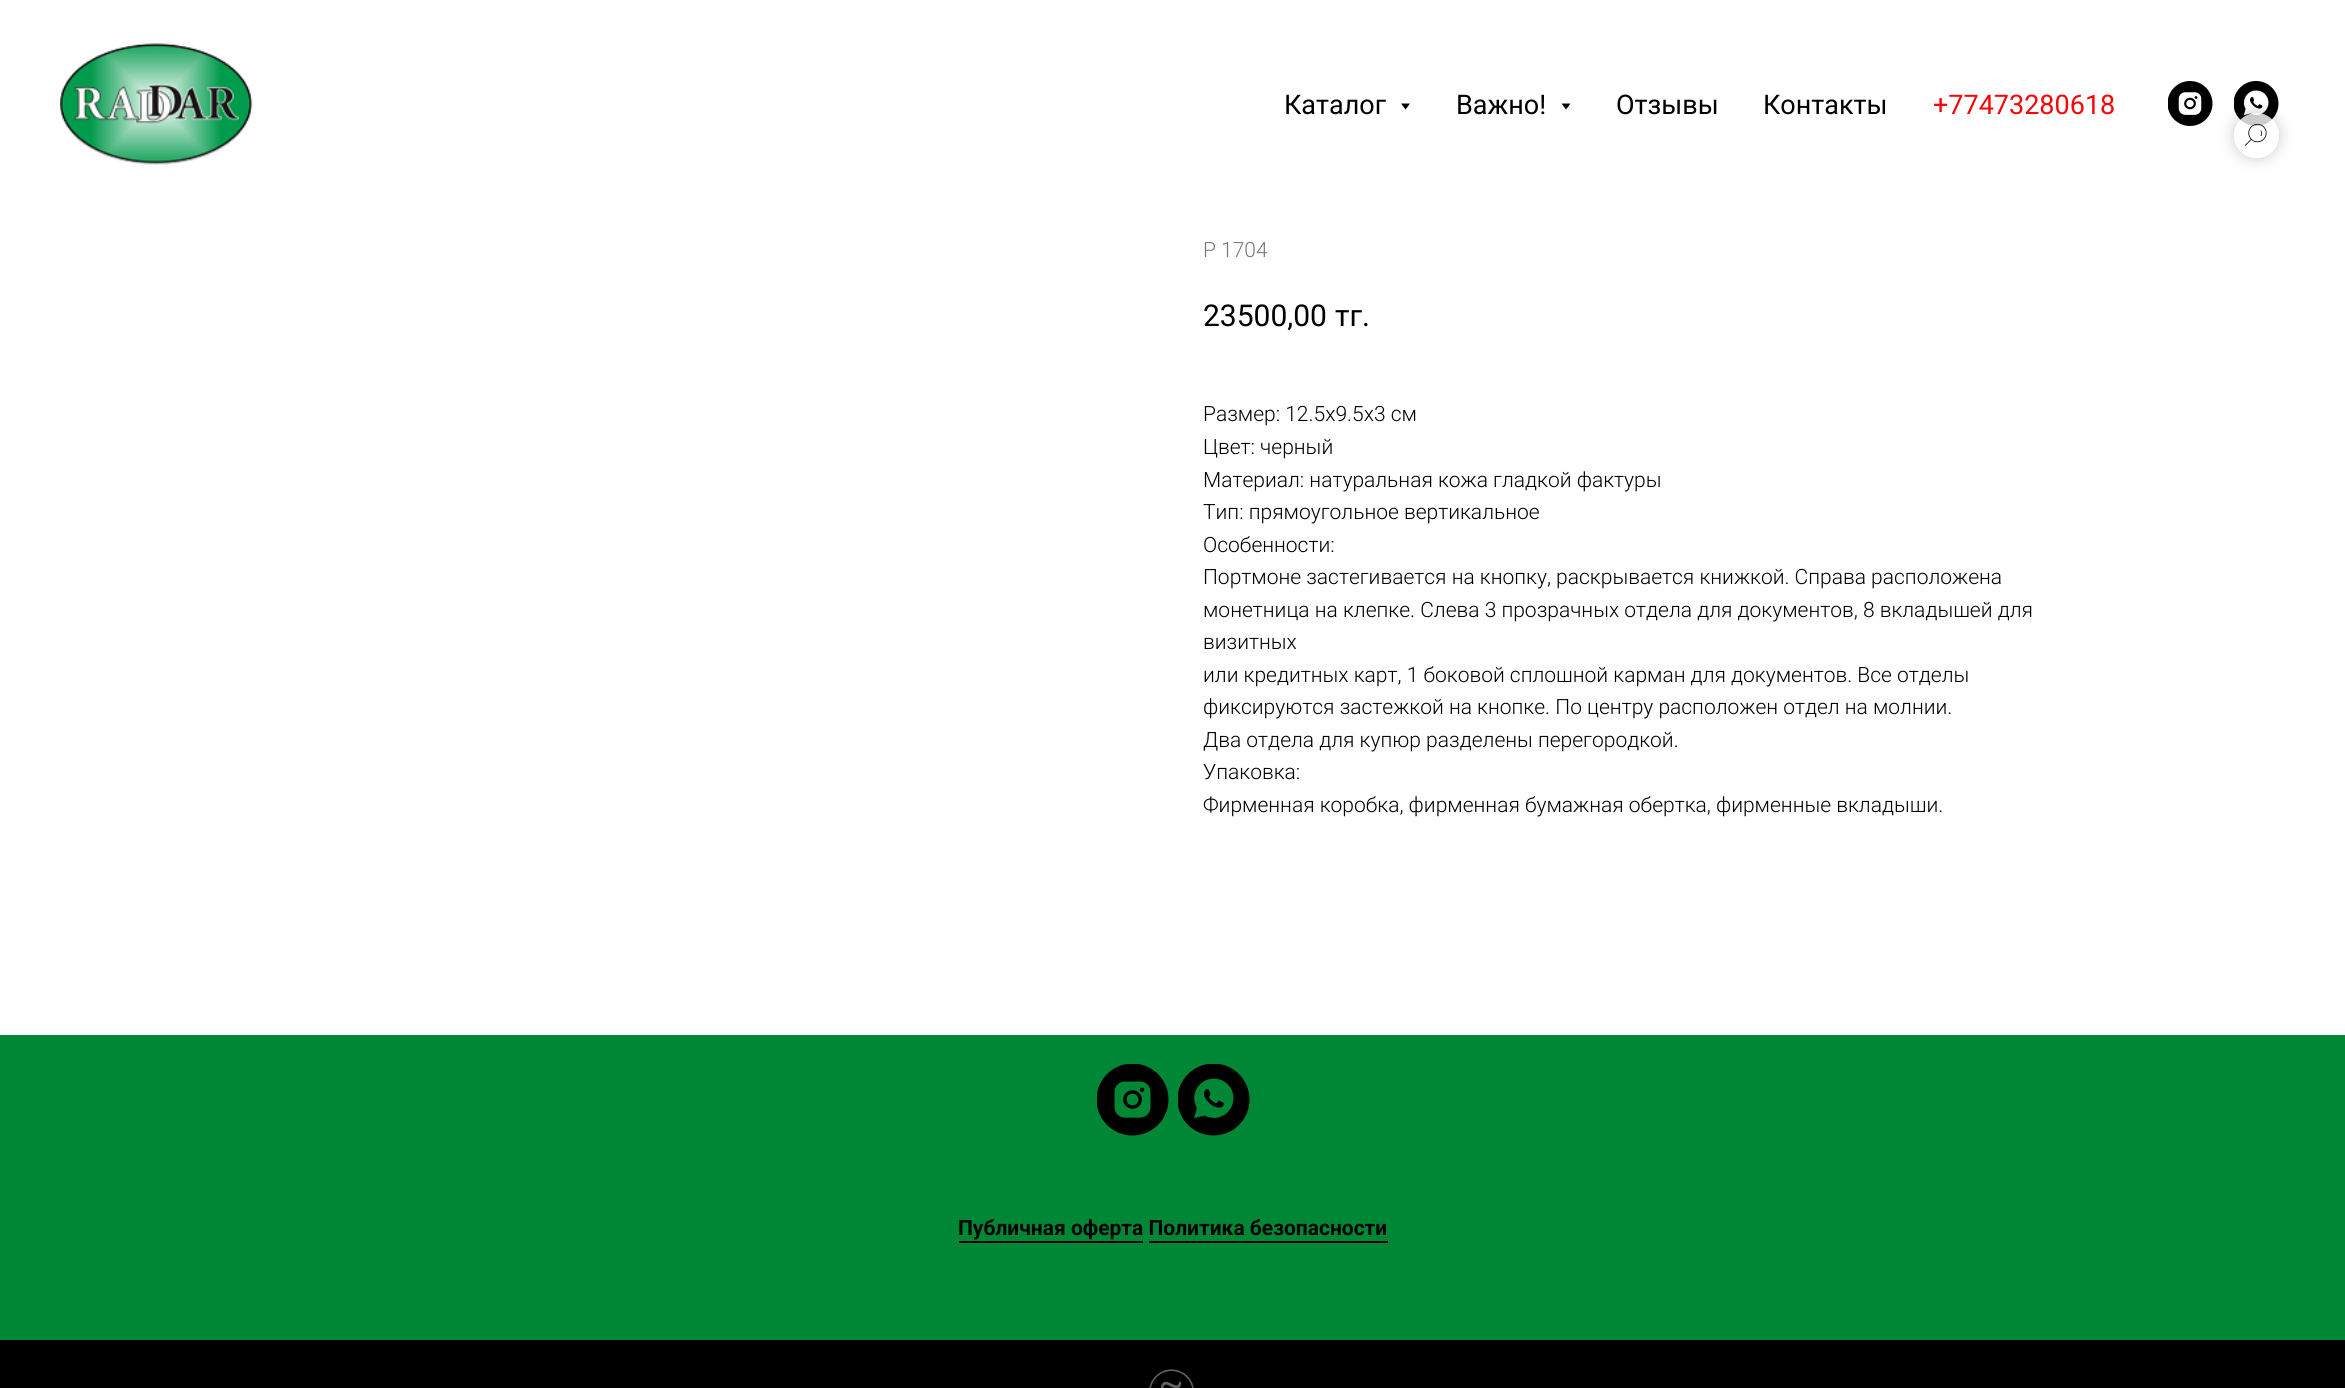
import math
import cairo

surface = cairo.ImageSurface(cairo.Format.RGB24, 2345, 1388)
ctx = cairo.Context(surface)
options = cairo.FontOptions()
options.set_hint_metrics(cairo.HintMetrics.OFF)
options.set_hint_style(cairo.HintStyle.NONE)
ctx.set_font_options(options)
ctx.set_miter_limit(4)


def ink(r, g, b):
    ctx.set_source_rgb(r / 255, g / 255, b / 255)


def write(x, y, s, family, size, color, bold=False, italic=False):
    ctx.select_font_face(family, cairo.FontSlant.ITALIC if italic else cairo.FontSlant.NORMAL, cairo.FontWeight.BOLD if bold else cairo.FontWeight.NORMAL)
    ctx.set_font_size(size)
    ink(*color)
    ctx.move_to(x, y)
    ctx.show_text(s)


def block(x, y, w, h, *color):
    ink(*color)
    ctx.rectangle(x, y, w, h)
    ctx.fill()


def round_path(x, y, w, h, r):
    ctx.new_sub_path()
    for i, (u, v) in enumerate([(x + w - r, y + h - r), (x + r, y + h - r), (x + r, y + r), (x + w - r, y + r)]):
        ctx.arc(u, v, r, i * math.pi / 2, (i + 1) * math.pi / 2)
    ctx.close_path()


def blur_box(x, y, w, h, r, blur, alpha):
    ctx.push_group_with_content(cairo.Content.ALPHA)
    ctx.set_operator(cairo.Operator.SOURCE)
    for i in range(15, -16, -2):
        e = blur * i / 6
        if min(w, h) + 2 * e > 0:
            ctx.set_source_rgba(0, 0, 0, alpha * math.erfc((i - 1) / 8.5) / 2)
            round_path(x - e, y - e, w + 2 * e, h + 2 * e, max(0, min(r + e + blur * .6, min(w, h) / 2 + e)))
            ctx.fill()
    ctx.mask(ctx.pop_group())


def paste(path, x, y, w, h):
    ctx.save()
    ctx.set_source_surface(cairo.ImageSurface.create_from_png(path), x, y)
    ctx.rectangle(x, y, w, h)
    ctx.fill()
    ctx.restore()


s1 = dict(family="Roboto", size=27, color=(0, 0, 0))
s2 = dict(family="Roboto", size=27, color=(248, 5, 5))
s3 = dict(family="Roboto Light", size=21, color=(119, 119, 119))
s4 = dict(family="Roboto", size=30, color=(0, 0, 0))
s5 = dict(family="Roboto Light", size=21, color=(0, 0, 0))
s6 = dict(family="Roboto", size=21, color=(0, 0, 0), bold=True)

ink(255, 255, 255)
ctx.paint()
paste("pic1.png", 60, 43, 193, 122)
write(1284, 114, "Каталог", **s1)
ctx.new_path()
ctx.move_to(1401, 103.5)
ctx.line_to(1410, 103.5)
ctx.line_to(1405.5, 109.5)
ctx.close_path()
ctx.fill()
write(1456, 114, "Важно!", **s1)
ctx.new_path()
ctx.move_to(1561.5, 103.5)
ctx.line_to(1570.5, 103.5)
ctx.line_to(1566, 109.5)
ctx.close_path()
ctx.fill()
write(1616, 114, "Отзывы", **s1)
write(1763, 114, "Контакты", **s1)
write(1933, 114, "+77473280618", **s2)
paste("pic2.png", 2168, 81, 45, 45)
paste("pic3.png", 2234, 81, 45, 45)
ctx.save()
ctx.set_fill_rule(cairo.FillRule.EVEN_ODD)
ctx.new_path()
ctx.move_to(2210, 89)
ctx.line_to(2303, 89)
ctx.line_to(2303, 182)
ctx.line_to(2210, 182)
ctx.close_path()
ctx.move_to(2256.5, 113)
ctx.curve_to(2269, 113, 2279, 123, 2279, 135.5)
ctx.curve_to(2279, 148, 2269, 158, 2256.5, 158)
ctx.curve_to(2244, 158, 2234, 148, 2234, 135.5)
ctx.curve_to(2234, 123, 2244, 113, 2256.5, 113)
ctx.close_path()
ctx.clip()
ink(0, 0, 0)
blur_box(2234, 113, 45, 45, 22.5, 7.5, 0.2)
ctx.restore()
ctx.set_source_rgba(1, 1, 1, 0.8)
ctx.arc(2256.5, 135.5, 22.5, 0, 2 * math.pi)
ctx.fill()
paste("pic4.png", 2244, 123, 23, 23)
write(1203, 257, "P 1704", **s3)
write(1203, 326, "23500,00", **s4)
write(1335, 326, "тг.", **s4)
write(1203, 421, "Размер: 12.5х9.5х3 см", **s5)
write(1203, 454, "Цвет: черный", **s5)
write(1203, 487, "Материал: натуральная кожа гладкой фактуры", **s5)
write(1203, 519, "Тип: прямоугольное вертикальное", **s5)
write(1203, 552, "Особенности:", **s5)
write(1203, 584, "Портмоне застегивается на кнопку, раскрывается книжкой. Справа расположена", **s5)
write(1203, 617, "монетница на клепке. Слева 3 прозрачных отдела для документов, 8 вкладышей для", **s5)
write(1203, 649, "визитных", **s5)
write(1203, 682, "или кредитных карт, 1 боковой сплошной карман для документов. Все отделы", **s5)
write(1203, 714, "фиксируются застежкой на кнопке. По центру расположен отдел на молнии.", **s5)
write(1203, 747, "Два отдела для купюр разделены перегородкой.", **s5)
write(1203, 779, "Упаковка:", **s5)
write(1203, 812, "Фирменная коробка, фирменная бумажная обертка, фирменные вкладыши.", **s5)
block(0, 1035, 2345, 305, 0, 135, 54)
paste("pic5.png", 1097, 1064, 72, 72)
paste("pic6.png", 1178, 1064, 72, 72)
write(958, 1235, "Публичная оферта Политика безопасности", **s6)
block(959, 1241, 184, 2, 0, 0, 0)
block(1149, 1241, 239, 2, 0, 0, 0)
block(0, 1340, 2345, 48, 0, 0, 0)
paste("pic7.png", 1149, 1369, 45, 19)
surface.write_to_png("screenshot.png")
